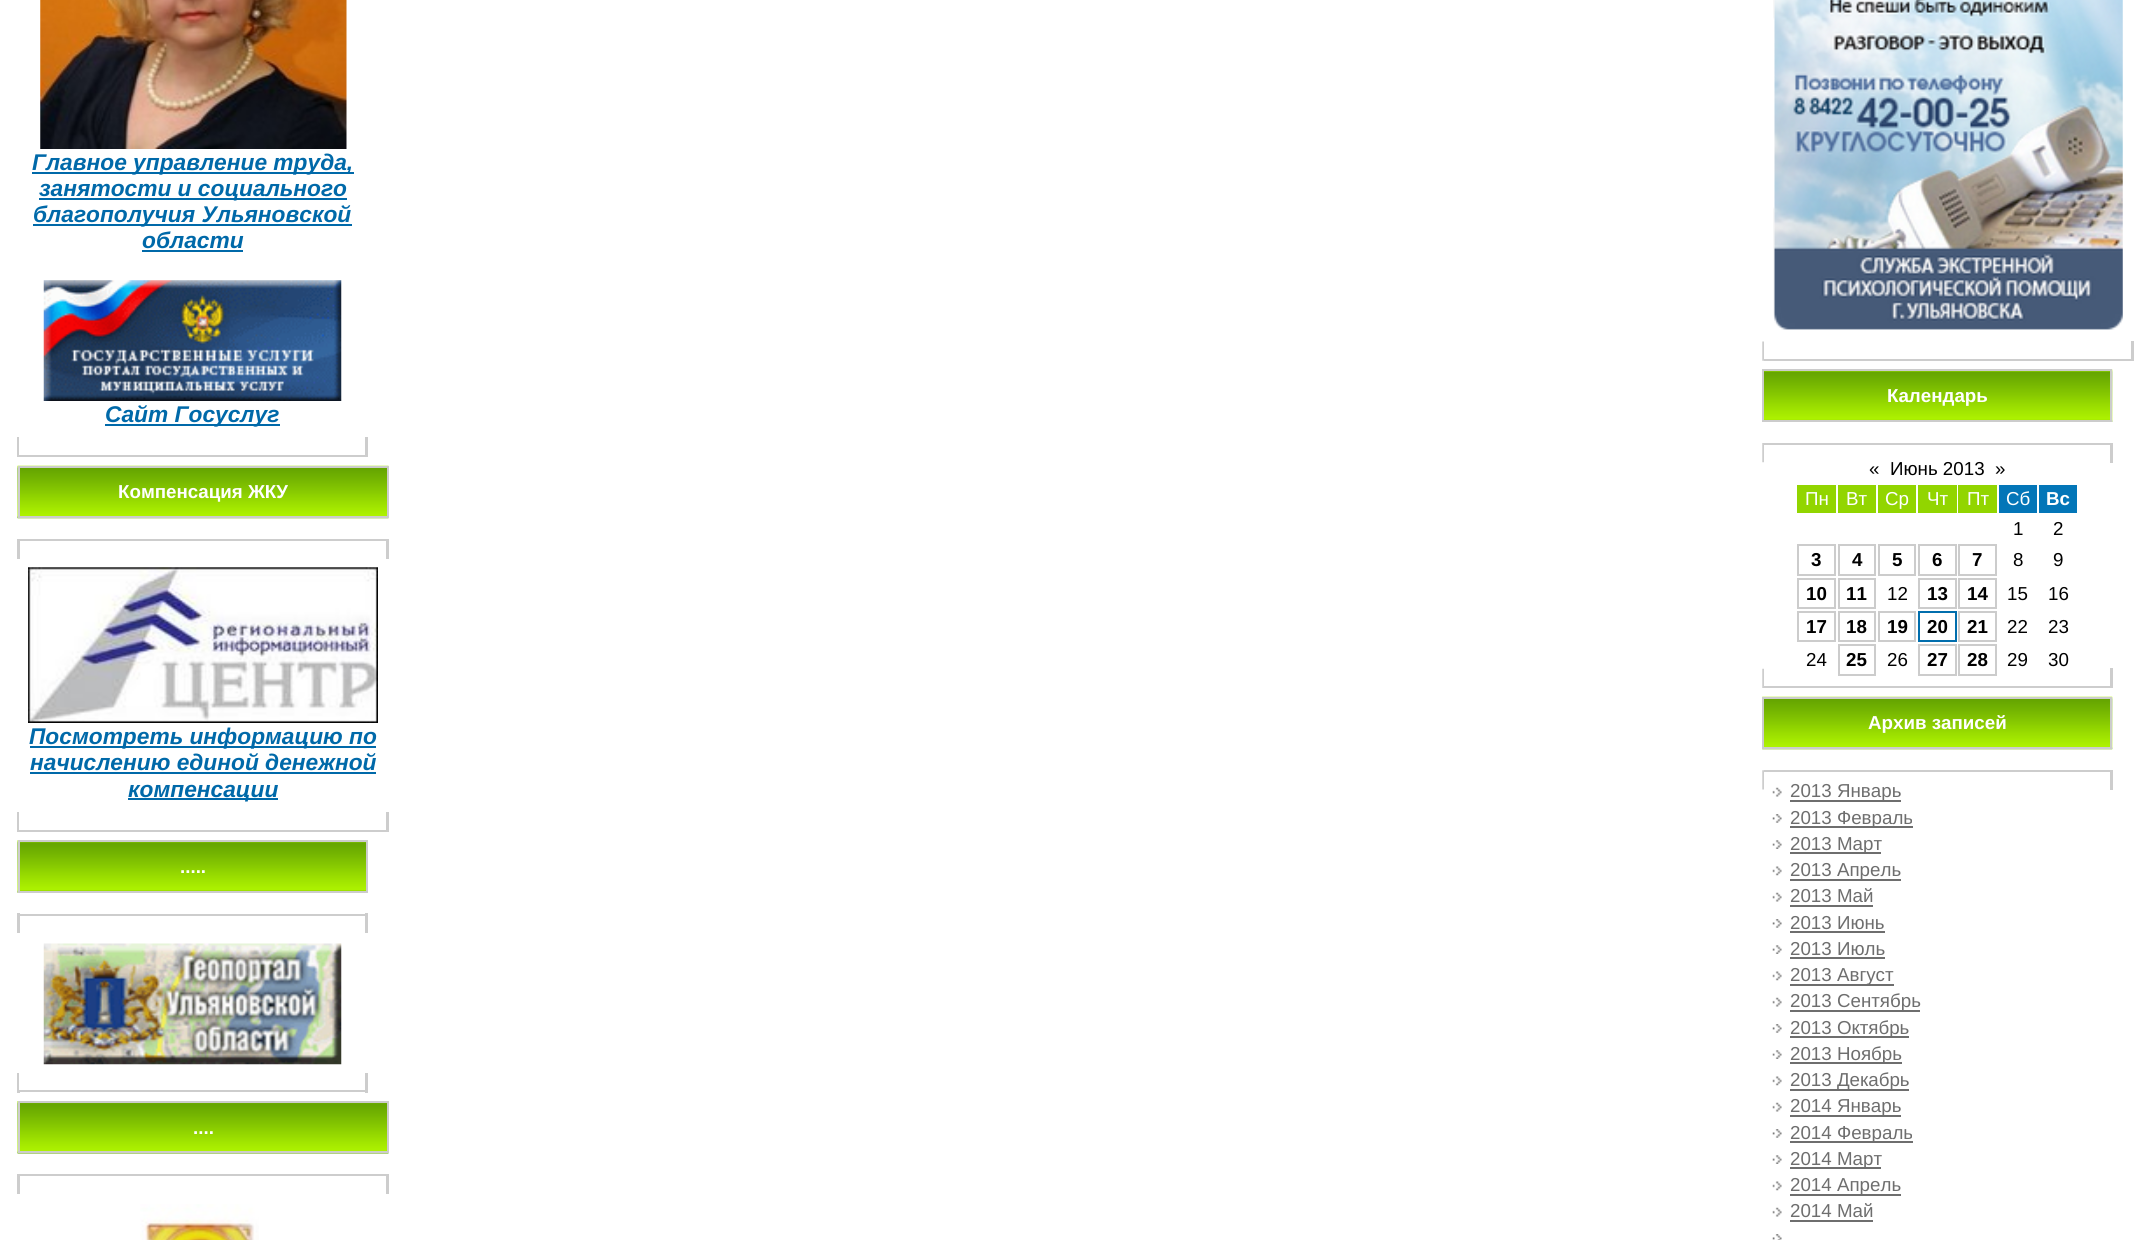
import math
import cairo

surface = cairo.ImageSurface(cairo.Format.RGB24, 2150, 1240)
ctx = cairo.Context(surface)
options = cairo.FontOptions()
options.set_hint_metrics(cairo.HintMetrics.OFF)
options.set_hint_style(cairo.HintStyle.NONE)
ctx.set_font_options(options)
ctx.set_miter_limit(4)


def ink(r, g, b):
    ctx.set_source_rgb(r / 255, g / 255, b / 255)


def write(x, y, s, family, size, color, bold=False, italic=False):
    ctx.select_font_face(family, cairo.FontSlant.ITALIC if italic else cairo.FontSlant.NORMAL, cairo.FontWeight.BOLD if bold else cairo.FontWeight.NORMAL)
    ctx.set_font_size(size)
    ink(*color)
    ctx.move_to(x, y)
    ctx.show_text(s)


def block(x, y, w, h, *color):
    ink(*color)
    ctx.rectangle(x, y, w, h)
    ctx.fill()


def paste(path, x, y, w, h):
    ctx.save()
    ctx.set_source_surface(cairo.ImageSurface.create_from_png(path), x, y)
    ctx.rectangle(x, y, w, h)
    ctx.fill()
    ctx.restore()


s1 = dict(family="Liberation Sans", size=22.75, color=(0, 105, 169), bold=True, italic=True)
s2 = dict(family="Liberation Sans", size=18.75, color=(255, 255, 255), bold=True)
s3 = dict(family="Liberation Sans", size=18.75, color=(0, 0, 0))
s4 = dict(family="Liberation Sans", size=18.75, color=(255, 255, 255))
s5 = dict(family="Liberation Sans", size=18.75, color=(0, 0, 0), bold=True)
s6 = dict(family="Liberation Sans", size=18.75, color=(110, 110, 110))

ink(255, 255, 255)
ctx.paint()
block(19, 455, 347, 2, 205, 205, 205)
paste("pic1.png", 40, 0, 307, 149)
block(32, 172, 322, 2, 0, 105, 169)
write(32, 170, "Главное управление труда,", **s1)
block(39, 198, 308, 2, 0, 105, 169)
write(39, 196, "занятости и социального", **s1)
block(33, 224, 319, 2, 0, 105, 169)
write(33, 222, "благополучия Ульяновской", **s1)
write(142, 248, "области", **s1)
block(142, 250, 101, 2, 0, 105, 169)
paste("pic2.png", 43, 280, 299, 121)
block(105, 424, 175, 2, 0, 105, 169)
write(105, 422, "Сайт Госуслуг", **s1)
block(17, 437, 2, 20, 205, 205, 205)
block(365, 437, 3, 20, 205, 205, 205)
paste("pic3.png", 17, 465, 372, 54)
ctx.rectangle(19, 467, 369, 50)
ink(204, 204, 204)
ctx.stroke()
write(118, 498, "Компенсация ЖКУ", **s2)
block(17, 812, 2, 20, 205, 205, 205)
block(19, 539, 368, 2, 205, 205, 205)
block(17, 539, 3, 20, 205, 205, 205)
block(19, 830, 368, 2, 205, 205, 205)
paste("pic4.png", 28, 567, 350, 156)
block(30, 746, 346, 2, 0, 105, 169)
write(29, 744, "Посмотреть информацию по", **s1)
write(30, 770, "начислению единой денежной", **s1)
block(30, 772, 346, 2, 0, 105, 169)
block(128, 798, 150, 2, 0, 105, 169)
write(128, 797, "компенсации", **s1)
block(386, 812, 3, 20, 205, 205, 205)
block(386, 539, 3, 20, 205, 205, 205)
paste("pic5.png", 17, 840, 349, 53)
ctx.rectangle(19, 841, 348, 51)
ink(204, 204, 204)
ctx.stroke()
write(180, 873, ".....", **s2)
block(17, 1073, 3, 20, 205, 205, 205)
block(19, 914, 347, 2, 205, 205, 205)
block(17, 913, 3, 20, 205, 205, 205)
block(19, 1073, 1, 17, 255, 255, 255)
block(19, 1090, 347, 2, 205, 205, 205)
paste("pic6.png", 43, 943, 299, 122)
block(365, 1073, 3, 20, 205, 205, 205)
block(365, 913, 3, 20, 205, 205, 205)
paste("pic7.png", 17, 1101, 372, 53)
ctx.rectangle(19, 1102, 369, 50)
ink(204, 204, 204)
ctx.stroke()
write(193, 1134, "....", **s2)
block(19, 1174, 368, 2, 205, 205, 205)
block(17, 1174, 3, 20, 205, 205, 205)
paste("pic8.png", 140, 1204, 119, 36)
block(386, 1174, 3, 20, 205, 205, 205)
paste("pic9.png", 1762, 341, 2, 20)
block(1764, 359, 368, 2, 205, 205, 205)
paste("pic10.png", 1773, 0, 350, 330)
block(2131, 341, 3, 20, 205, 205, 205)
paste("pic11.png", 1764, 369, 349, 53)
ctx.rectangle(1763, 370, 348, 51)
ink(204, 204, 204)
ctx.stroke()
write(1887, 402, "Календарь", **s2)
paste("pic12.png", 1762, 668, 2, 20)
paste("pic13.png", 1762, 443, 2, 20)
block(1764, 443, 347, 2, 205, 205, 205)
block(1764, 686, 347, 2, 205, 205, 205)
write(1869, 475, "«", **s3)
write(1890, 475, "Июнь 2013", **s3)
write(1995, 475, "»", **s3)
block(1797, 485, 39, 28, 146, 213, 0)
write(1805, 505, "Пн", **s4)
block(1838, 485, 38, 28, 146, 213, 0)
write(1846, 505, "Вт", **s4)
block(1878, 485, 38, 28, 146, 213, 0)
write(1885, 505, "Ср", **s4)
block(1918, 485, 39, 28, 146, 213, 0)
write(1927, 505, "Чт", **s4)
block(1958, 485, 39, 28, 146, 213, 0)
write(1967, 505, "Пт", **s4)
block(1999, 485, 38, 28, 3, 118, 184)
write(2006, 505, "Сб", **s4)
block(2039, 485, 38, 28, 3, 118, 184)
write(2046, 505, "Вс", **s2)
write(2013, 535, "1", **s3)
write(2053, 535, "2", **s3)
ctx.rectangle(1798, 545, 37, 30)
ink(204, 204, 204)
ctx.stroke()
write(1811, 566, "3", **s5)
ctx.rectangle(1839, 545, 36, 30)
ink(204, 204, 204)
ctx.stroke()
write(1852, 566, "4", **s5)
ctx.rectangle(1879, 545, 36, 30)
ink(204, 204, 204)
ctx.stroke()
write(1892, 566, "5", **s5)
ctx.rectangle(1919, 545, 37, 30)
ink(204, 204, 204)
ctx.stroke()
write(1932, 566, "6", **s5)
ctx.rectangle(1959, 545, 37, 30)
ink(204, 204, 204)
ctx.stroke()
write(1972, 566, "7", **s5)
write(2013, 566, "8", **s3)
write(2053, 566, "9", **s3)
ctx.rectangle(1798, 579, 37, 29)
ink(204, 204, 204)
ctx.stroke()
write(1806, 600, "10", **s5)
ctx.rectangle(1839, 579, 36, 29)
ink(204, 204, 204)
ctx.stroke()
write(1846, 600, "11", **s5)
write(1887, 600, "12", **s3)
ctx.rectangle(1919, 579, 37, 29)
ink(204, 204, 204)
ctx.stroke()
write(1927, 600, "13", **s5)
ctx.rectangle(1959, 579, 37, 29)
ink(204, 204, 204)
ctx.stroke()
write(1967, 600, "14", **s5)
write(2007, 600, "15", **s3)
write(2048, 600, "16", **s3)
ctx.rectangle(1798, 612, 37, 29)
ink(204, 204, 204)
ctx.stroke()
write(1806, 633, "17", **s5)
ctx.rectangle(1839, 612, 36, 29)
ink(204, 204, 204)
ctx.stroke()
write(1846, 633, "18", **s5)
ctx.rectangle(1879, 612, 36, 29)
ink(204, 204, 204)
ctx.stroke()
write(1887, 633, "19", **s5)
ctx.rectangle(1919, 612, 37, 29)
ink(1, 110, 173)
ctx.stroke()
write(1927, 633, "20", **s5)
ctx.rectangle(1959, 612, 37, 29)
ink(204, 204, 204)
ctx.stroke()
write(1967, 633, "21", **s5)
write(2007, 633, "22", **s3)
write(2048, 633, "23", **s3)
write(1806, 666, "24", **s3)
ctx.rectangle(1839, 645, 36, 30)
ink(204, 204, 204)
ctx.stroke()
write(1846, 666, "25", **s5)
write(1887, 666, "26", **s3)
ctx.rectangle(1919, 645, 37, 30)
ink(204, 204, 204)
ctx.stroke()
write(1927, 666, "27", **s5)
ctx.rectangle(1959, 645, 37, 30)
ink(204, 204, 204)
ctx.stroke()
write(1967, 666, "28", **s5)
write(2007, 666, "29", **s3)
write(2048, 666, "30", **s3)
block(2110, 668, 3, 20, 205, 205, 205)
block(2110, 443, 3, 20, 205, 205, 205)
paste("pic14.png", 1762, 696, 351, 54)
ctx.rectangle(1763, 698, 348, 50)
ink(204, 204, 204)
ctx.stroke()
write(1868, 729, "Архив записей", **s2)
paste("pic15.png", 1762, 770, 2, 20)
block(1764, 770, 347, 2, 205, 205, 205)
block(2110, 770, 3, 20, 205, 205, 205)
paste("pic16.png", 1772, 787, 10, 10)
block(1790, 800, 111, 2, 110, 110, 110)
write(1790, 797, "2013 Январь", **s6)
paste("pic17.png", 1772, 814, 10, 9)
block(1790, 826, 123, 2, 110, 110, 110)
write(1790, 824, "2013 Февраль", **s6)
paste("pic18.png", 1772, 840, 10, 9)
block(1790, 852, 91, 2, 110, 110, 110)
write(1790, 850, "2013 Март", **s6)
paste("pic19.png", 1772, 866, 10, 10)
block(1790, 879, 111, 2, 110, 110, 110)
write(1790, 876, "2013 Апрель", **s6)
paste("pic16.png", 1772, 892, 10, 10)
write(1790, 902, "2013 Май", **s6)
block(1790, 905, 83, 2, 110, 110, 110)
paste("pic17.png", 1772, 919, 10, 9)
write(1790, 929, "2013 Июнь", **s6)
block(1790, 931, 95, 2, 110, 110, 110)
paste("pic18.png", 1772, 945, 10, 9)
write(1790, 955, "2013 Июль", **s6)
block(1790, 957, 95, 2, 110, 110, 110)
paste("pic19.png", 1772, 971, 10, 10)
block(1790, 984, 104, 2, 110, 110, 110)
write(1790, 981, "2013 Август", **s6)
paste("pic16.png", 1772, 997, 10, 10)
block(1790, 1010, 130, 2, 110, 110, 110)
write(1790, 1007, "2013 Сентябрь", **s6)
paste("pic17.png", 1772, 1024, 10, 9)
block(1790, 1036, 119, 2, 110, 110, 110)
write(1790, 1034, "2013 Октябрь", **s6)
paste("pic18.png", 1772, 1050, 10, 9)
block(1790, 1062, 112, 2, 110, 110, 110)
write(1790, 1060, "2013 Ноябрь", **s6)
paste("pic19.png", 1772, 1076, 10, 10)
block(1790, 1089, 119, 2, 110, 110, 110)
write(1790, 1086, "2013 Декабрь", **s6)
paste("pic16.png", 1772, 1102, 10, 10)
block(1790, 1115, 111, 2, 110, 110, 110)
write(1790, 1112, "2014 Январь", **s6)
paste("pic17.png", 1772, 1129, 10, 9)
block(1790, 1141, 123, 2, 110, 110, 110)
write(1790, 1139, "2014 Февраль", **s6)
paste("pic18.png", 1772, 1155, 10, 9)
block(1790, 1167, 91, 2, 110, 110, 110)
write(1790, 1165, "2014 Март", **s6)
paste("pic19.png", 1772, 1181, 10, 10)
block(1790, 1194, 111, 2, 110, 110, 110)
write(1790, 1191, "2014 Апрель", **s6)
paste("pic16.png", 1772, 1207, 10, 10)
write(1790, 1217, "2014 Май", **s6)
block(1790, 1220, 83, 2, 110, 110, 110)
paste("pic20.png", 1772, 1234, 10, 6)
surface.write_to_png("screenshot.png")
